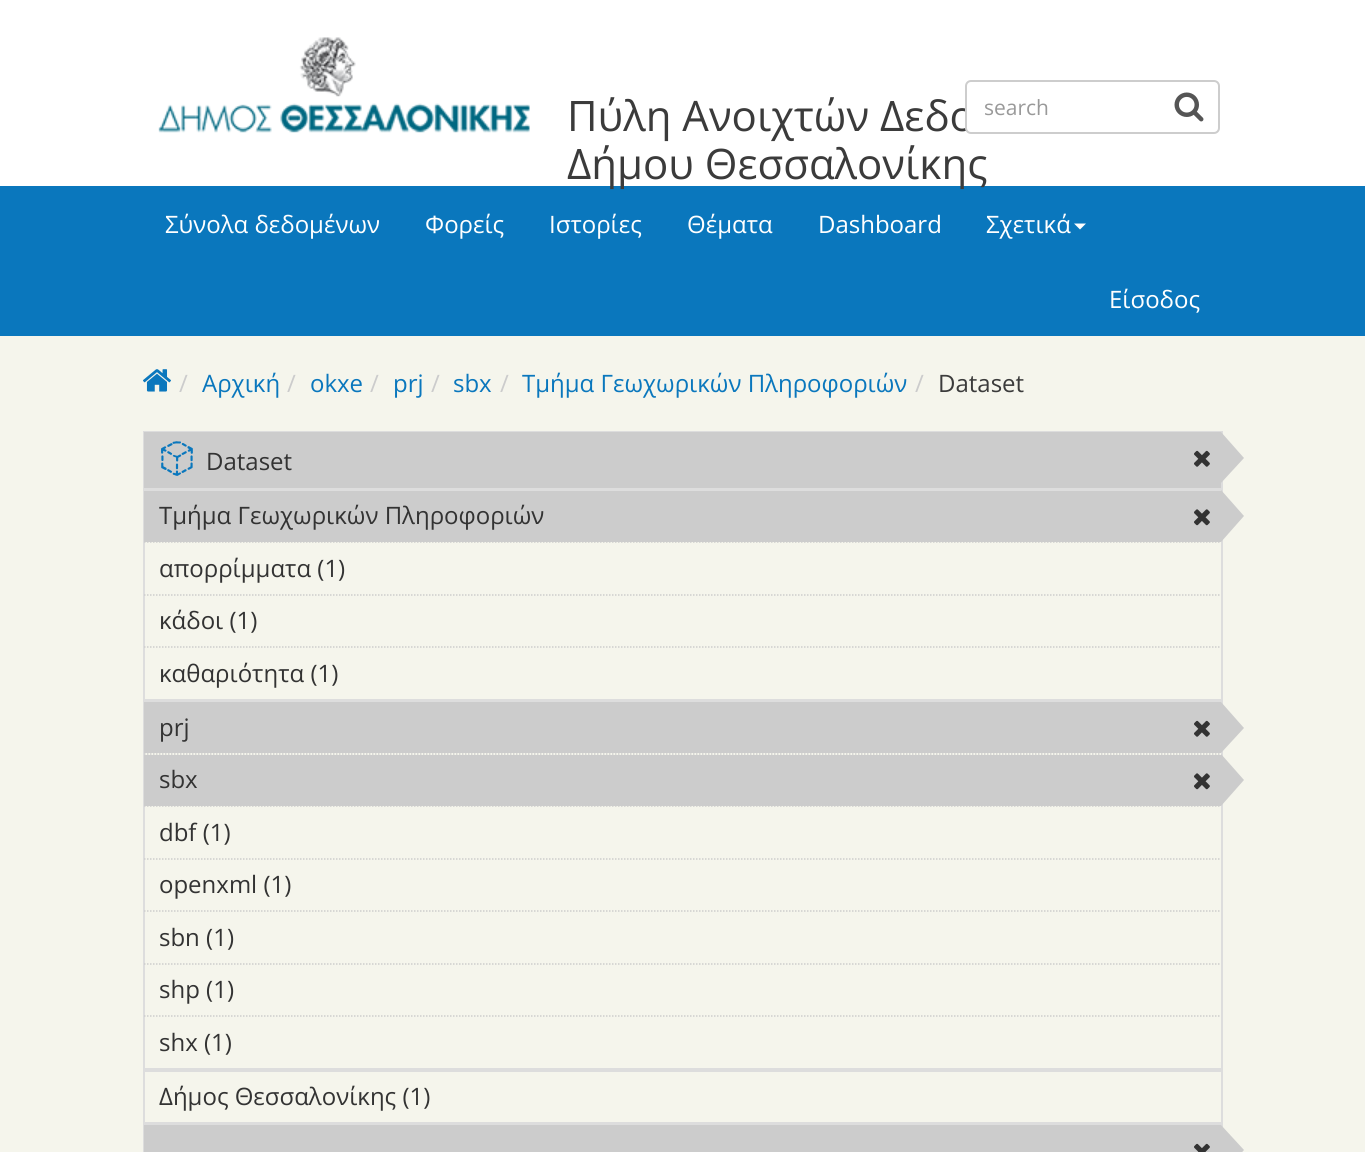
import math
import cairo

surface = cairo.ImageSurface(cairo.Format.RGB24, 1365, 1152)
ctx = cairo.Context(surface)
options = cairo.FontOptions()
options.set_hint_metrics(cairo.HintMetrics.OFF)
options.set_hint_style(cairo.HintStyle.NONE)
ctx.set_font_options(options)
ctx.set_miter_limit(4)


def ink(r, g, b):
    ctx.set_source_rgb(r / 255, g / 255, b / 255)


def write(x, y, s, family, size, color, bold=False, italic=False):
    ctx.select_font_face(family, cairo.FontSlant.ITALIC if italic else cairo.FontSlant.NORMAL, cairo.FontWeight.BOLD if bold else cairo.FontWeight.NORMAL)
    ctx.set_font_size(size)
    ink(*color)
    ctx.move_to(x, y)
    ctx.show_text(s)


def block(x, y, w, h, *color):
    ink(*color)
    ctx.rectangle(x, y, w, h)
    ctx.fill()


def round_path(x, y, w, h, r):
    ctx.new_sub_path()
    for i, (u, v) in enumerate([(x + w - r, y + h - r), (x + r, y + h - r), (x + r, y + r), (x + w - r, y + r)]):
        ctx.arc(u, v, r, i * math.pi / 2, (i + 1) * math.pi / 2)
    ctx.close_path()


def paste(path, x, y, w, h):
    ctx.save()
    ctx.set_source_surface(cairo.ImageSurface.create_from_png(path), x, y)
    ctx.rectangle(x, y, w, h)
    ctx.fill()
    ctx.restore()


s1 = dict(family="Open Sans", size=42, color=(59, 59, 59))
s2 = dict(family="Open Sans", size=21, color=(153, 153, 153))
s3 = dict(family="Open Sans", size=24, color=(255, 255, 255))
s4 = dict(family="Open Sans", size=24, color=(204, 204, 204))
s5 = dict(family="Open Sans", size=24, color=(10, 119, 189))
s6 = dict(family="Open Sans", size=24, color=(59, 59, 59))
s7 = dict(family="Open Sans", size=24, color=(51, 51, 51))

ink(255, 255, 255)
ctx.paint()
paste("pic1.png", 158, 37, 372, 96)
write(567, 131, "Πύλη Ανοιχτών Δεδο", **s1)
block(0, 186, 1365, 150, 10, 119, 189)
write(567, 179, "Δήμου Θεσσαλονίκης", **s1)
ink(255, 255, 255)
round_path(966, 81, 253, 52, 5)
ctx.fill_preserve()
ink(205, 205, 205)
ctx.stroke()
write(984, 115, "search", **s2)
paste("pic2.png", 1174, 92, 30, 30)
write(165, 233, "Σύνολα δεδομένων", **s3)
write(425, 233, "Φορείς", **s3)
write(549, 233, "Ιστορίες", **s3)
write(687, 233, "Θέματα", **s3)
write(818, 233, "Dashboard", **s3)
write(986, 233, "Σχετικά", **s3)
ctx.new_path()
ctx.move_to(1074, 223.5)
ctx.line_to(1086, 223.5)
ctx.line_to(1080, 229.5)
ctx.close_path()
ctx.fill()
write(1109, 308, "Είσοδος", **s3)
block(0, 336, 1365, 816, 245, 245, 236)
paste("pic3.png", 143, 369, 28, 23)
write(179, 392, "/", **s4)
write(202, 392, "Αρχική", **s5)
write(287, 392, "/", **s4)
write(310, 392, "okxe", **s5)
write(370, 392, "/", **s4)
write(393, 392, "prj", **s5)
write(431, 392, "/", **s4)
write(453, 392, "sbx", **s5)
write(500, 392, "/", **s4)
write(522, 392, "Τμήμα Γεωχωρικών Πληροφοριών", **s5)
write(915, 392, "/", **s4)
write(938, 392, "Dataset", **s6)
ctx.rectangle(144, 432, 1078, 56)
ink(221, 221, 221)
ctx.stroke()
block(144, 432, 1077, 56, 204, 204, 204)
paste("pic4.png", 161, 441, 32, 35)
write(206, 470, "Dataset", **s7)
paste("pic5.png", 1194, 450, 16, 17)
ink(204, 204, 204)
ctx.new_path()
ctx.move_to(1221, 483)
ctx.line_to(1221, 432)
ctx.line_to(1244, 458)
ctx.close_path()
ctx.fill()
ctx.rectangle(144, 490, 1078, 210)
ink(221, 221, 221)
ctx.stroke()
ctx.new_path()
ctx.move_to(144, 542)
ctx.line_to(1221, 542)
ink(204, 204, 204)
ctx.set_line_width(1.5)
ctx.set_dash([1.5, 1.5])
ctx.stroke()
block(144, 491, 1077, 51, 204, 204, 204)
write(159, 524, "Τμήμα Γεωχωρικών Πληροφοριών", **s7)
paste("pic6.png", 1194, 509, 16, 17)
ink(204, 204, 204)
ctx.new_path()
ctx.move_to(1221, 542)
ctx.line_to(1221, 490)
ctx.line_to(1244, 516)
ctx.close_path()
ctx.fill()
ctx.new_path()
ctx.move_to(144, 595)
ctx.line_to(1221, 595)
ctx.stroke()
write(159, 577, "απορρίμματα (1)", **s7)
ctx.new_path()
ctx.move_to(144, 647)
ctx.line_to(1221, 647)
ink(204, 204, 204)
ctx.stroke()
write(159, 629, "κάδοι (1)", **s7)
write(159, 682, "καθαριότητα (1)", **s7)
ctx.rectangle(144, 702, 1078, 367)
ink(221, 221, 221)
ctx.set_line_width(2)
ctx.set_dash([])
ctx.stroke()
ctx.new_path()
ctx.move_to(144, 754)
ctx.line_to(1221, 754)
ink(204, 204, 204)
ctx.set_line_width(1.5)
ctx.set_dash([1.5, 1.5])
ctx.stroke()
block(144, 702, 1077, 51, 204, 204, 204)
write(159, 736, "prj", **s7)
paste("pic5.png", 1194, 720, 16, 17)
ink(204, 204, 204)
ctx.new_path()
ctx.move_to(1221, 753)
ctx.line_to(1221, 702)
ctx.line_to(1244, 728)
ctx.close_path()
ctx.fill()
ctx.new_path()
ctx.move_to(144, 806)
ctx.line_to(1221, 806)
ctx.stroke()
block(144, 755, 1077, 51, 204, 204, 204)
write(159, 788, "sbx", **s7)
paste("pic6.png", 1194, 773, 16, 17)
ink(204, 204, 204)
ctx.new_path()
ctx.move_to(1221, 806)
ctx.line_to(1221, 754)
ctx.line_to(1244, 780)
ctx.close_path()
ctx.fill()
ctx.new_path()
ctx.move_to(144, 859)
ctx.line_to(1221, 859)
ctx.stroke()
write(159, 841, "dbf (1)", **s7)
ctx.new_path()
ctx.move_to(144, 911)
ctx.line_to(1221, 911)
ink(204, 204, 204)
ctx.stroke()
write(159, 893, "openxml (1)", **s7)
ctx.new_path()
ctx.move_to(144, 964)
ctx.line_to(1221, 964)
ink(204, 204, 204)
ctx.stroke()
write(159, 946, "sbn (1)", **s7)
ctx.new_path()
ctx.move_to(144, 1016)
ctx.line_to(1221, 1016)
ink(204, 204, 204)
ctx.stroke()
write(159, 998, "shp (1)", **s7)
write(159, 1051, "shx (1)", **s7)
ctx.rectangle(144, 1071, 1078, 52)
ink(221, 221, 221)
ctx.set_line_width(2)
ctx.set_dash([])
ctx.stroke()
write(159, 1105, "Δήμος Θεσσαλονίκης (1)", **s7)
ctx.rectangle(144, 1125, 1078, 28)
ink(221, 221, 221)
ctx.stroke()
block(144, 1125, 1077, 27, 204, 204, 204)
paste("pic7.png", 1194, 1143, 16, 9)
ctx.new_path()
ctx.move_to(1221, 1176)
ctx.line_to(1221, 1125)
ctx.line_to(1244, 1150)
ctx.close_path()
ctx.fill()
surface.write_to_png("screenshot.png")
